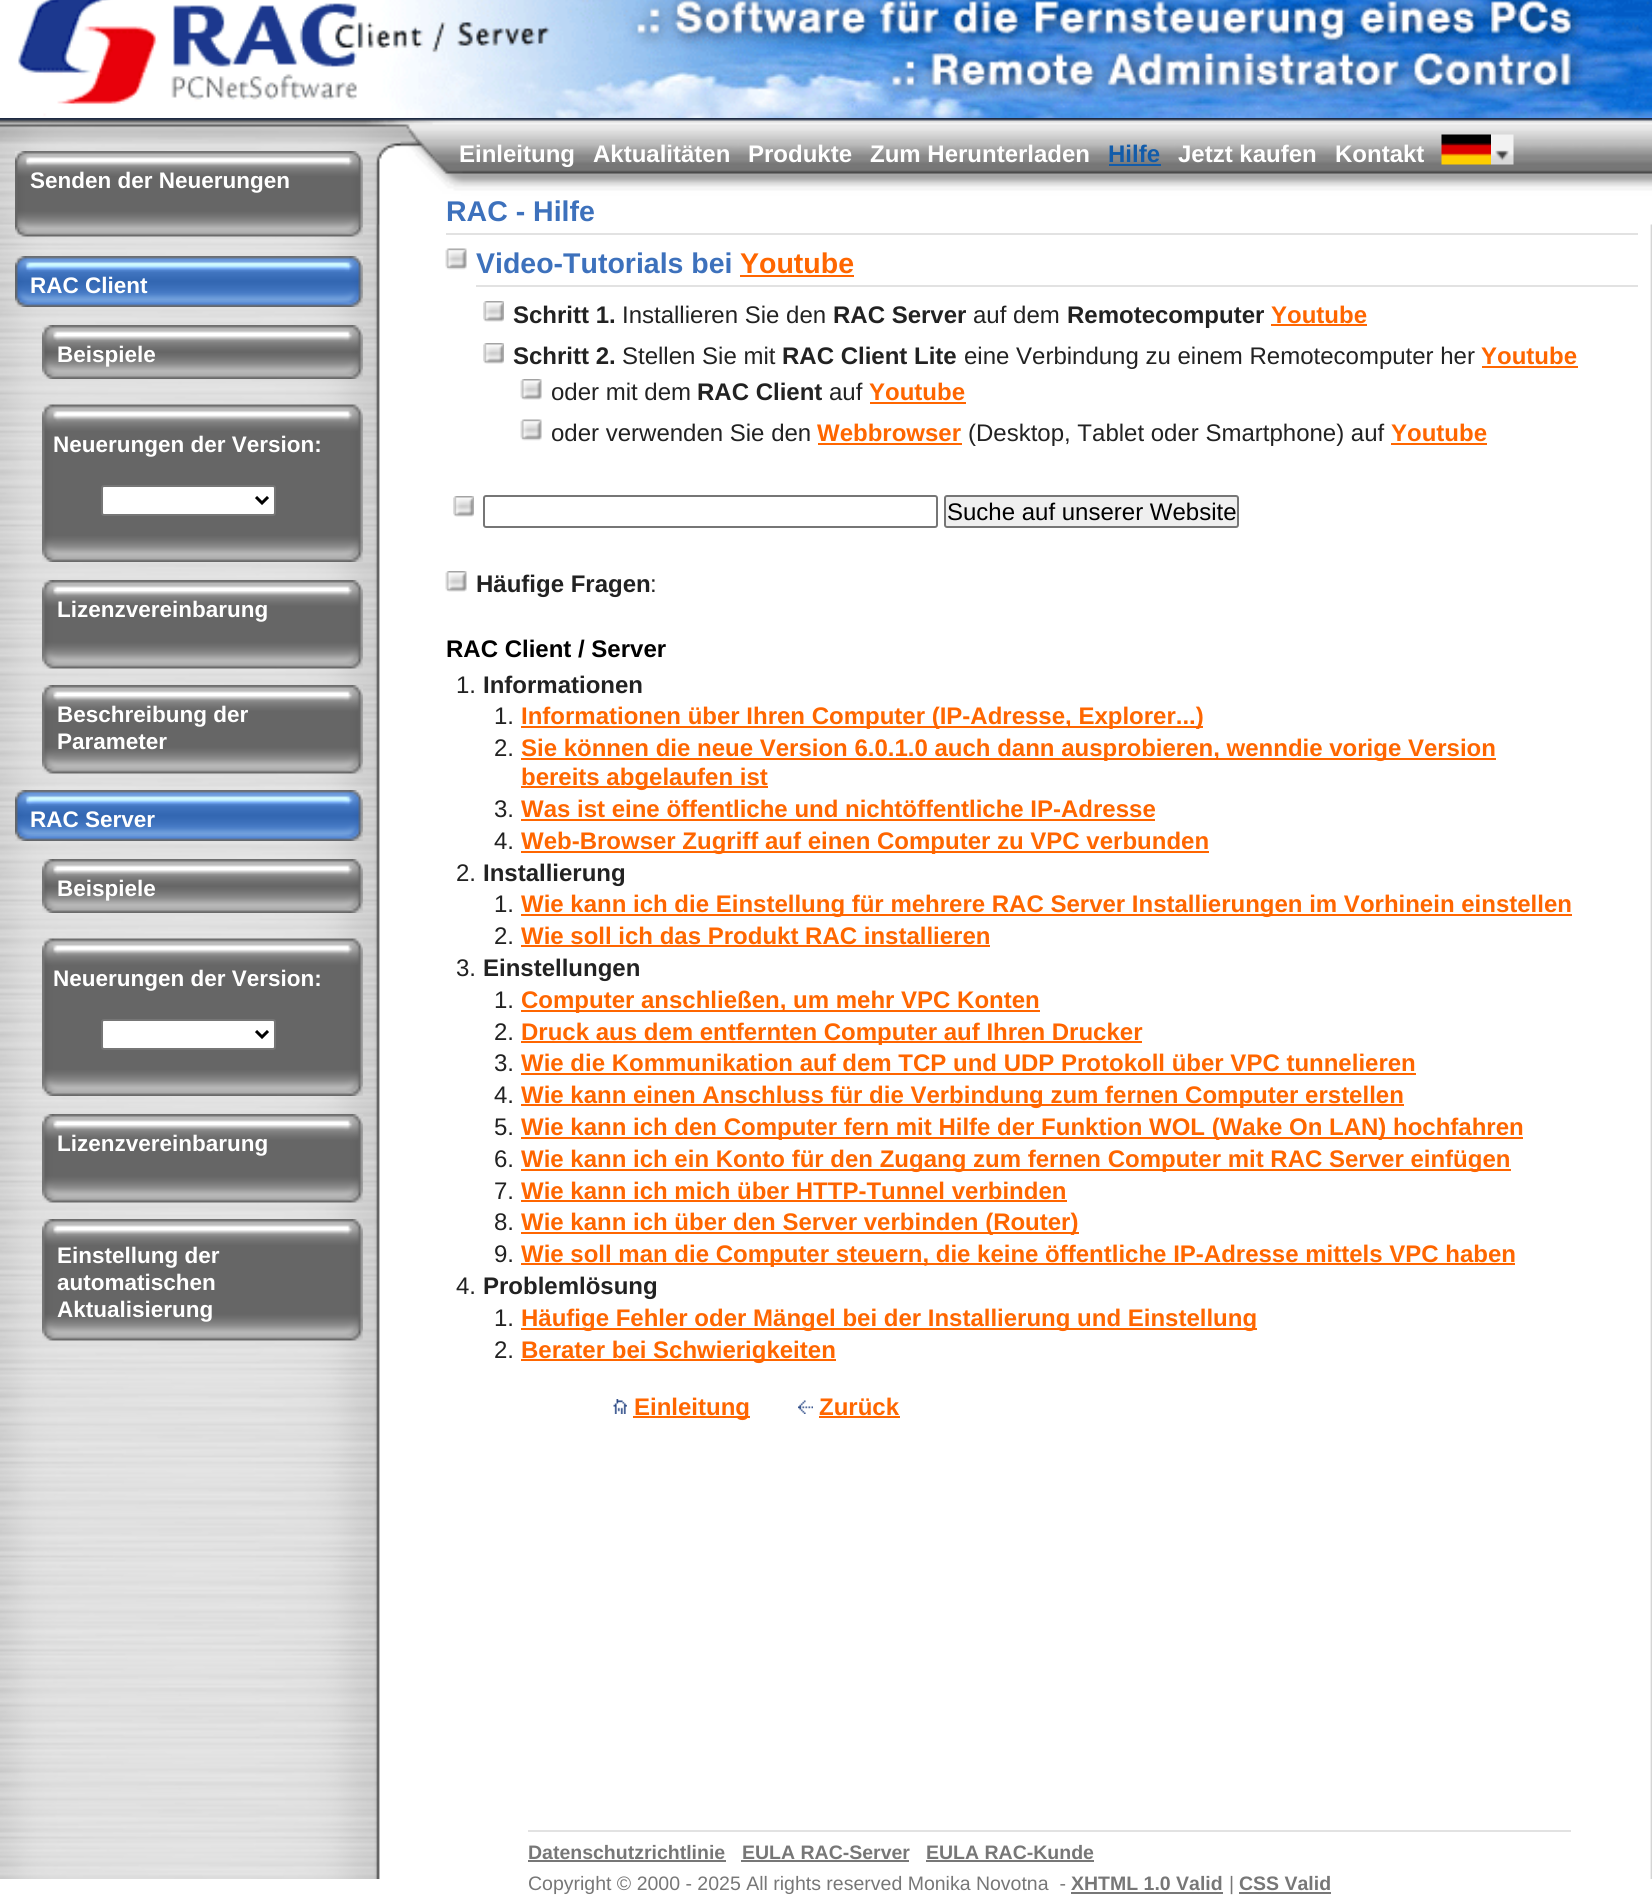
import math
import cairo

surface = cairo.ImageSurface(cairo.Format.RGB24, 1652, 1902)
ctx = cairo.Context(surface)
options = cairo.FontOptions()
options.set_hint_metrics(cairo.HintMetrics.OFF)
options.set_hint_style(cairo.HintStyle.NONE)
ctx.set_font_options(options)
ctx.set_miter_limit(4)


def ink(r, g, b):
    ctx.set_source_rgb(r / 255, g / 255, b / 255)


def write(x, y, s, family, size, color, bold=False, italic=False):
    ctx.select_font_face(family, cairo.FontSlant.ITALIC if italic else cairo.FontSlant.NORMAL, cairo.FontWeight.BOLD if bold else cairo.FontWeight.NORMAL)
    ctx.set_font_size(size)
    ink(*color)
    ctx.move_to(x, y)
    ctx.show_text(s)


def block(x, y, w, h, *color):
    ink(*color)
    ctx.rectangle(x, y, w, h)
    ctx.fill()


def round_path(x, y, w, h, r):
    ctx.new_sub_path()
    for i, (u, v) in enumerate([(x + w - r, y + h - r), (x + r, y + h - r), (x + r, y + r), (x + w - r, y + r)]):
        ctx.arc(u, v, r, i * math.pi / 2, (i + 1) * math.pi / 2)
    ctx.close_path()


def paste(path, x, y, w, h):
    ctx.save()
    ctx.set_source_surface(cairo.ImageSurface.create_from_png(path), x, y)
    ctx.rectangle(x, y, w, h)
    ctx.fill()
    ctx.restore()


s1 = dict(family="Liberation Sans", size=22.5, color=(255, 255, 255), bold=True)
s2 = dict(family="Liberation Sans", size=24, color=(255, 255, 255), bold=True)
s3 = dict(family="Liberation Sans", size=24, color=(18, 92, 170), bold=True)
s4 = dict(family="Liberation Sans", size=28.5, color=(61, 113, 188), bold=True)
s5 = dict(family="Liberation Sans", size=28.5, color=(255, 102, 0), bold=True)
s6 = dict(family="Liberation Sans", size=24, color=(34, 34, 34), bold=True)
s7 = dict(family="Liberation Sans", size=24, color=(34, 34, 34))
s8 = dict(family="Liberation Sans", size=24, color=(255, 102, 0), bold=True)
s9 = dict(family="Liberation Sans", size=24, color=(0, 0, 0))
s10 = dict(family="Liberation Sans", size=24, color=(0, 0, 0), bold=True)
s11 = dict(family="Liberation Sans", size=19.5, color=(119, 119, 119), bold=True)
s12 = dict(family="Liberation Sans", size=19.5, color=(119, 119, 119))

ink(255, 255, 255)
ctx.paint()
paste("pic1.png", 0, 224, 1652, 1655)
paste("pic2.png", 0, 0, 1652, 118)
paste("pic3.png", 0, 118, 1652, 107)
paste("pic4.png", 15, 151, 348, 86)
write(30, 188, "Senden der Neuerungen", **s1)
paste("pic5.png", 15, 256, 348, 51)
write(30, 293, "RAC Client", **s1)
paste("pic6.png", 42, 325, 321, 54)
write(57, 362, "Beispiele", **s1)
paste("pic7.png", 42, 404, 321, 158)
write(53, 452, "Neuerungen der Version:", **s1)
round_path(102, 486, 173, 29, 2)
ctx.fill_preserve()
ink(118, 118, 118)
ctx.stroke()
ctx.new_path()
ctx.move_to(256, 497)
ctx.line_to(262, 503)
ctx.line_to(268, 497)
ink(0, 0, 0)
ctx.set_line_width(3)
ctx.stroke()
paste("pic8.png", 42, 580, 321, 89)
write(57, 617, "Lizenzvereinbarung", **s1)
paste("pic9.png", 42, 685, 321, 89)
write(57, 722, "Beschreibung der", **s1)
write(57, 749, "Parameter", **s1)
paste("pic5.png", 15, 790, 348, 51)
write(30, 827, "RAC Server", **s1)
paste("pic6.png", 42, 859, 321, 54)
write(57, 896, "Beispiele", **s1)
paste("pic10.png", 42, 938, 321, 158)
write(53, 986, "Neuerungen der Version:", **s1)
round_path(102, 1020, 173, 29, 2)
ctx.fill_preserve()
ink(118, 118, 118)
ctx.set_line_width(2)
ctx.stroke()
ctx.new_path()
ctx.move_to(256, 1031)
ctx.line_to(262, 1037)
ctx.line_to(268, 1031)
ink(0, 0, 0)
ctx.set_line_width(3)
ctx.stroke()
paste("pic11.png", 42, 1114, 321, 89)
write(57, 1151, "Lizenzvereinbarung", **s1)
paste("pic12.png", 42, 1219, 321, 122)
write(57, 1263, "Einstellung der", **s1)
write(57, 1290, "automatischen", **s1)
write(57, 1317, "Aktualisierung", **s1)
write(459, 162, "Einleitung", **s2)
write(593, 162, "Aktualitäten", **s2)
write(748, 162, "Produkte", **s2)
write(870, 162, "Zum Herunterladen", **s2)
write(1108, 162, "Hilfe", **s3)
block(1109, 164, 52, 2, 18, 92, 170)
write(1178, 162, "Jetzt kaufen", **s2)
write(1335, 162, "Kontakt", **s2)
paste("pic13.png", 1441, 134, 50, 31)
paste("pic14.png", 1491, 134, 23, 31)
block(446, 233, 1192, 2, 226, 226, 226)
write(446, 221, "RAC - Hilfe", **s4)
paste("pic15.png", 445, 248, 22, 22)
block(476, 285, 1162, 2, 226, 226, 226)
write(476, 273, "Video-Tutorials bei", **s4)
write(740, 273, "Youtube", **s5)
block(740, 275, 114, 2, 255, 102, 0)
paste("pic16.png", 483, 301, 21, 21)
write(513, 323, "Schritt 1.", **s6)
write(622, 323, "Installieren Sie den", **s7)
write(833, 323, "RAC Server", **s6)
write(973, 323, "auf dem", **s7)
write(1067, 323, "Remotecomputer", **s6)
write(1271, 323, "Youtube", **s8)
block(1271, 324, 96, 2, 255, 102, 0)
paste("pic16.png", 483, 343, 21, 21)
write(513, 364, "Schritt 2.", **s6)
write(622, 364, "Stellen Sie mit", **s7)
write(782, 364, "RAC Client Lite", **s6)
write(964, 364, "eine Verbindung zu einem Remotecomputer her", **s7)
write(1481, 364, "Youtube", **s8)
block(1482, 366, 96, 2, 255, 102, 0)
paste("pic17.png", 520, 379, 22, 21)
write(551, 400, "oder mit dem", **s7)
write(697, 400, "RAC Client", **s6)
write(829, 400, "auf", **s7)
write(869, 400, "Youtube", **s8)
block(870, 402, 96, 2, 255, 102, 0)
paste("pic18.png", 520, 419, 22, 22)
write(551, 441, "oder verwenden Sie den", **s7)
write(817, 441, "Webbrowser", **s8)
block(818, 443, 144, 2, 255, 102, 0)
write(968, 441, "(Desktop, Tablet oder Smartphone) auf", **s7)
write(1391, 441, "Youtube", **s8)
block(1391, 443, 96, 2, 255, 102, 0)
paste("pic16.png", 453, 496, 21, 21)
round_path(484, 496, 453, 31, 2)
ink(118, 118, 118)
ctx.set_line_width(2)
ctx.stroke()
ink(239, 239, 239)
round_path(945, 496, 293, 31, 2)
ctx.fill_preserve()
ink(118, 118, 118)
ctx.stroke()
write(947, 520, "Suche auf unserer Website", **s9)
paste("pic19.png", 445, 571, 22, 21)
write(476, 592, "Häufige Fragen", **s6)
write(650, 592, ":", **s7)
write(446, 657, "RAC Client / Server", **s10)
write(456, 693, "1.", **s7)
write(483, 693, "Informationen", **s6)
write(494, 724, "1.", **s7)
block(521, 726, 682, 2, 255, 102, 0)
write(521, 724, "Informationen über Ihren Computer (IP-Adresse, Explorer...)", **s8)
write(494, 756, "2.", **s7)
block(521, 758, 975, 2, 255, 102, 0)
write(521, 756, "Sie können die neue Version 6.0.1.0 auch dann ausprobieren, wenndie vorige Version", **s8)
block(521, 786, 247, 2, 255, 102, 0)
write(521, 785, "bereits abgelaufen ist", **s8)
write(494, 817, "3.", **s7)
write(521, 817, "Was ist eine öffentliche und nichtöffentliche IP-Adresse", **s8)
block(521, 819, 634, 2, 255, 102, 0)
write(494, 849, "4.", **s7)
block(521, 851, 688, 2, 255, 102, 0)
write(521, 849, "Web-Browser Zugriff auf einen Computer zu VPC verbunden", **s8)
write(456, 881, "2.", **s7)
write(483, 881, "Installierung", **s6)
write(494, 912, "1.", **s7)
block(521, 914, 1051, 2, 255, 102, 0)
write(521, 912, "Wie kann ich die Einstellung für mehrere RAC Server Installierungen im Vorhinein einstellen", **s8)
write(494, 944, "2.", **s7)
write(521, 944, "Wie soll ich das Produkt RAC installieren", **s8)
block(521, 945, 469, 2, 255, 102, 0)
write(456, 976, "3.", **s7)
write(483, 976, "Einstellungen", **s6)
write(494, 1008, "1.", **s7)
block(521, 1010, 519, 2, 255, 102, 0)
write(521, 1008, "Computer anschließen, um mehr VPC Konten", **s8)
write(494, 1040, "2.", **s7)
block(521, 1041, 621, 2, 255, 102, 0)
write(521, 1040, "Druck aus dem entfernten Computer auf Ihren Drucker", **s8)
write(494, 1071, "3.", **s7)
write(521, 1071, "Wie die Kommunikation auf dem TCP und UDP Protokoll über VPC tunnelieren", **s8)
block(521, 1073, 895, 2, 255, 102, 0)
write(494, 1103, "4.", **s7)
block(521, 1104, 883, 2, 255, 102, 0)
write(521, 1103, "Wie kann einen Anschluss für die Verbindung zum fernen Computer erstellen", **s8)
write(494, 1135, "5.", **s7)
block(521, 1137, 1002, 2, 255, 102, 0)
write(521, 1135, "Wie kann ich den Computer fern mit Hilfe der Funktion WOL (Wake On LAN) hochfahren", **s8)
write(494, 1167, "6.", **s7)
block(521, 1169, 990, 2, 255, 102, 0)
write(521, 1167, "Wie kann ich ein Konto für den Zugang zum fernen Computer mit RAC Server einfügen", **s8)
write(494, 1199, "7.", **s7)
write(521, 1199, "Wie kann ich mich über HTTP-Tunnel verbinden", **s8)
block(521, 1200, 546, 2, 255, 102, 0)
write(494, 1230, "8.", **s7)
block(521, 1232, 558, 2, 255, 102, 0)
write(521, 1230, "Wie kann ich über den Server verbinden (Router)", **s8)
write(494, 1262, "9.", **s7)
block(521, 1263, 994, 2, 255, 102, 0)
write(521, 1262, "Wie soll man die Computer steuern, die keine öffentliche IP-Adresse mittels VPC haben", **s8)
write(456, 1294, "4.", **s7)
write(483, 1294, "Problemlösung", **s6)
write(494, 1326, "1.", **s7)
block(521, 1328, 736, 2, 255, 102, 0)
write(521, 1326, "Häufige Fehler oder Mängel bei der Installierung und Einstellung", **s8)
write(494, 1358, "2.", **s7)
block(521, 1359, 315, 2, 255, 102, 0)
write(521, 1358, "Berater bei Schwierigkeiten", **s8)
paste("pic20.png", 613, 1399, 14, 15)
block(633, 1416, 117, 2, 255, 102, 0)
write(634, 1415, "Einleitung", **s8)
paste("pic21.png", 798, 1400, 15, 14)
write(819, 1415, "Zurück", **s8)
block(819, 1416, 81, 2, 255, 102, 0)
block(528, 1830, 1043, 2, 226, 226, 226)
write(528, 1859, "Datenschutzrichtlinie", **s11)
block(528, 1860, 198, 2, 119, 119, 119)
write(742, 1859, "EULA RAC-Server", **s11)
block(741, 1860, 168, 2, 119, 119, 119)
write(926, 1859, "EULA RAC-Kunde", **s11)
block(926, 1860, 168, 2, 119, 119, 119)
write(528, 1890, "Copyright © 2000 - 2025 All rights reserved Monika Novotna  -", **s12)
write(1071, 1890, "XHTML 1.0 Valid", **s11)
block(1071, 1892, 152, 2, 119, 119, 119)
write(1229, 1890, "|", **s12)
write(1239, 1890, "CSS Valid", **s11)
block(1239, 1892, 92, 2, 119, 119, 119)
surface.write_to_png("screenshot.png")
